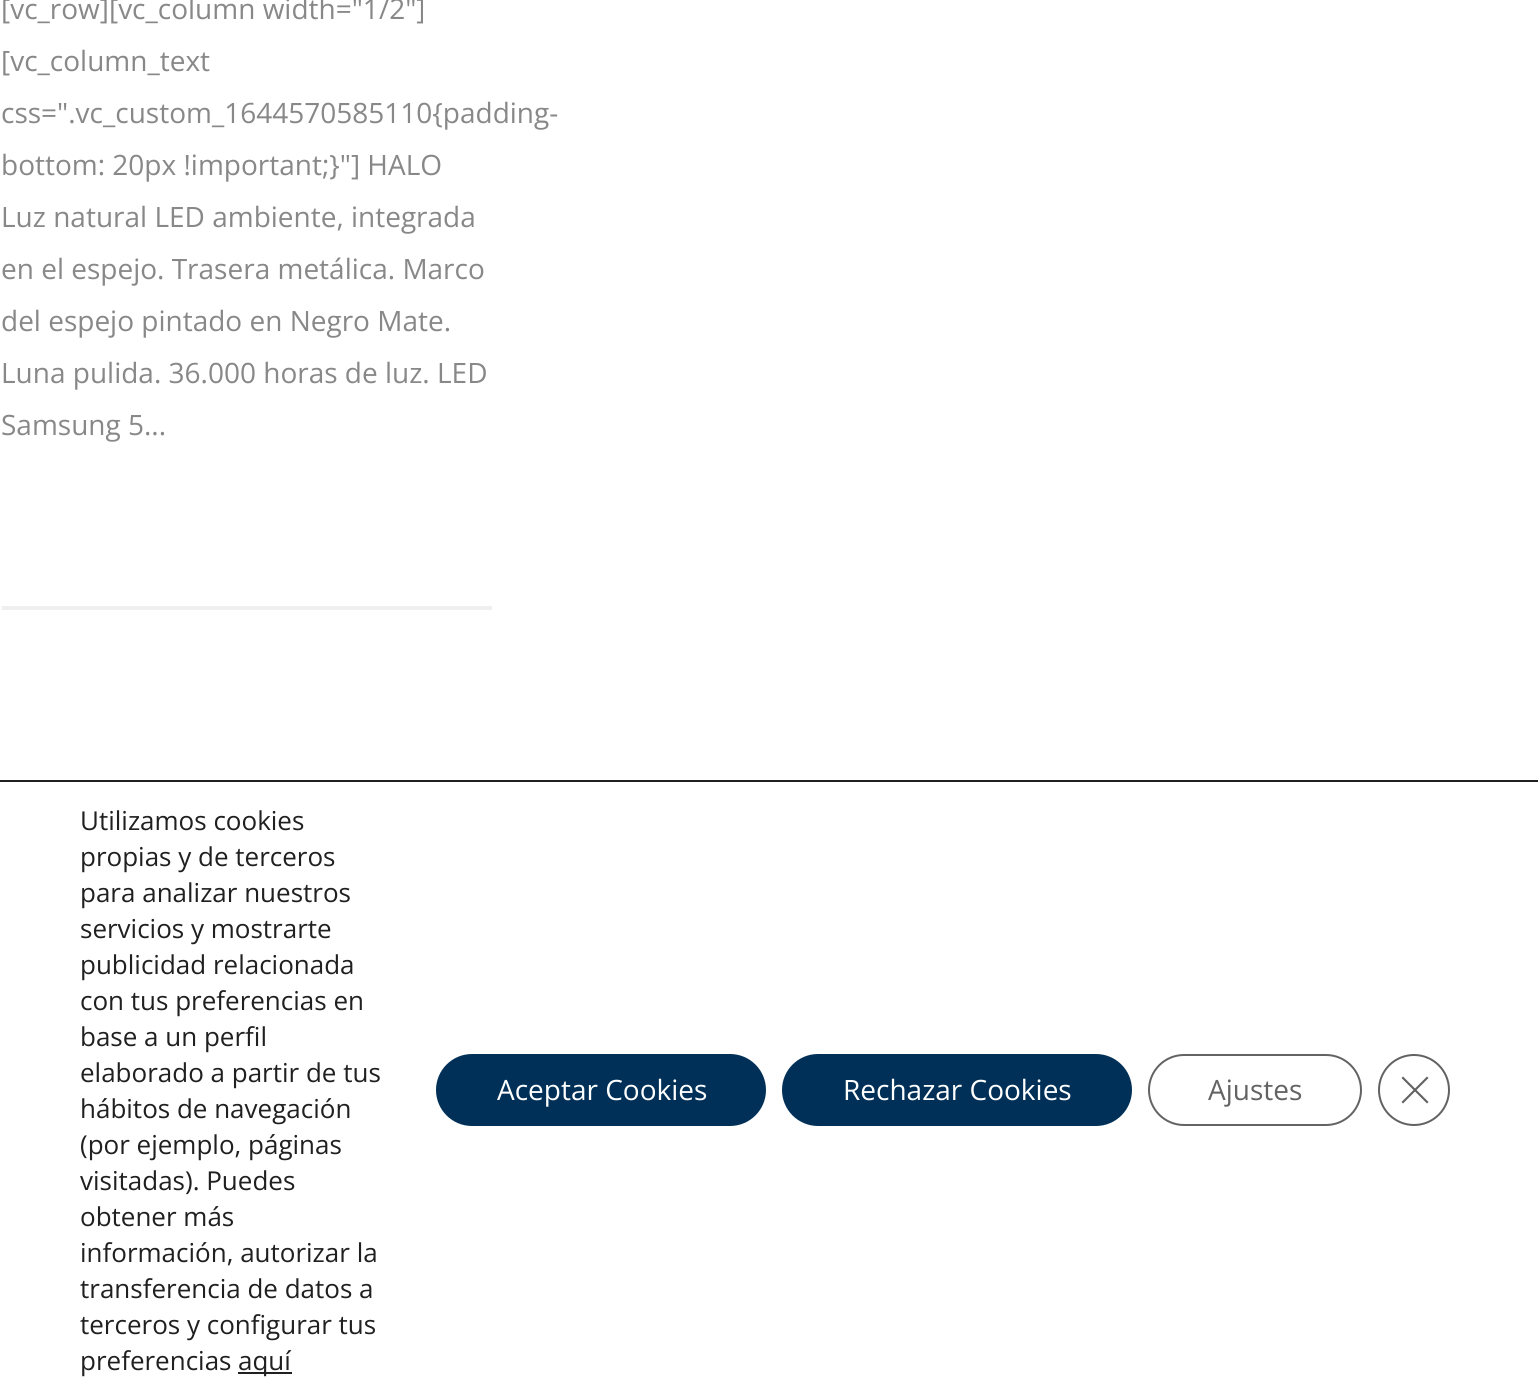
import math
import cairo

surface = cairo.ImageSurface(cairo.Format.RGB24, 1538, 1398)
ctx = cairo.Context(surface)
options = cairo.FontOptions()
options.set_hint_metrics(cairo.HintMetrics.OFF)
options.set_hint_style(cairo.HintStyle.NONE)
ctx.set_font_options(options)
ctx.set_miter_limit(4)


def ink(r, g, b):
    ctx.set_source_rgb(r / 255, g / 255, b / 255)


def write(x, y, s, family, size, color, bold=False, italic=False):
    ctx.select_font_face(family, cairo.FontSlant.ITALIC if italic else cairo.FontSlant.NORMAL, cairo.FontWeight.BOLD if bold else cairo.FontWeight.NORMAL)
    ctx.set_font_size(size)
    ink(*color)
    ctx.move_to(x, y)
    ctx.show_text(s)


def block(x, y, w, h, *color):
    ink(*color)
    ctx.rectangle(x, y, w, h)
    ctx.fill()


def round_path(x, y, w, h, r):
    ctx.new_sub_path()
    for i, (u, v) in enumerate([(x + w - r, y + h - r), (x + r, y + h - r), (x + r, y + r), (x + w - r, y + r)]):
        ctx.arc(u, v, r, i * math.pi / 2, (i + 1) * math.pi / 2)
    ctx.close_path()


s1 = dict(family="Open Sans", size=28, color=(136, 136, 136))
s2 = dict(family="Open Sans", size=26, color=(32, 32, 32))
s3 = dict(family="Open Sans", size=28, color=(255, 255, 255))
s4 = dict(family="Open Sans", size=28, color=(99, 99, 99))

ink(255, 255, 255)
ctx.paint()
block(2, 606, 490, 4, 239, 239, 239)
write(1, 19, "[vc_row][vc_column width=\"1/2\"]", **s1)
write(1, 71, "[vc_column_text", **s1)
write(1, 123, "css=\".vc_custom_1644570585110{padding-", **s1)
write(1, 175, "bottom: 20px !important;}\"] HALO", **s1)
write(1, 227, "Luz natural LED ambiente, integrada", **s1)
write(1, 279, "en el espejo. Trasera metálica. Marco", **s1)
write(1, 331, "del espejo pintado en Negro Mate.", **s1)
write(1, 383, "Luna pulida. 36.000 horas de luz. LED", **s1)
write(1, 435, "Samsung 5...", **s1)
block(0, 780, 1538, 2, 32, 32, 32)
write(80, 830, "Utilizamos cookies", **s2)
write(80, 866, "propias y de terceros", **s2)
write(80, 902, "para analizar nuestros", **s2)
write(80, 938, "servicios y mostrarte", **s2)
write(80, 974, "publicidad relacionada", **s2)
write(80, 1010, "con tus preferencias en", **s2)
write(80, 1046, "base a un perfil", **s2)
write(80, 1082, "elaborado a partir de tus", **s2)
write(80, 1118, "hábitos de navegación", **s2)
write(80, 1154, "(por ejemplo, páginas", **s2)
write(80, 1190, "visitadas). Puedes", **s2)
write(80, 1226, "obtener más", **s2)
write(80, 1262, "información, autorizar la", **s2)
write(80, 1298, "transferencia de datos a", **s2)
write(80, 1334, "terceros y configurar tus", **s2)
write(80, 1370, "preferencias", **s2)
block(238, 1372, 54, 2, 32, 32, 32)
write(238, 1370, "aquí", **s2)
ink(0, 48, 87)
round_path(436, 1054, 330, 72, 36)
ctx.fill()
write(497, 1100, "Aceptar Cookies", **s3)
ink(0, 48, 87)
round_path(782, 1054, 350, 72, 36)
ctx.fill()
write(843, 1100, "Rechazar Cookies", **s3)
round_path(1149, 1055, 212, 70, 35)
ink(99, 99, 99)
ctx.stroke()
write(1208, 1100, "Ajustes", **s4)
ctx.new_path()
ctx.arc(1414, 1090, 35, 0, 2 * math.pi)
ink(98, 98, 98)
ctx.stroke()
ctx.new_path()
ctx.move_to(1427, 1076.5)
ctx.line_to(1428.5, 1078)
ctx.line_to(1403, 1103.5)
ctx.line_to(1401.5, 1102)
ctx.close_path()
ctx.fill()
ctx.new_path()
ctx.move_to(1401.5, 1078)
ctx.line_to(1403, 1076.5)
ctx.line_to(1428.5, 1102)
ctx.line_to(1427, 1103.5)
ctx.close_path()
ctx.fill()
surface.write_to_png("screenshot.png")
